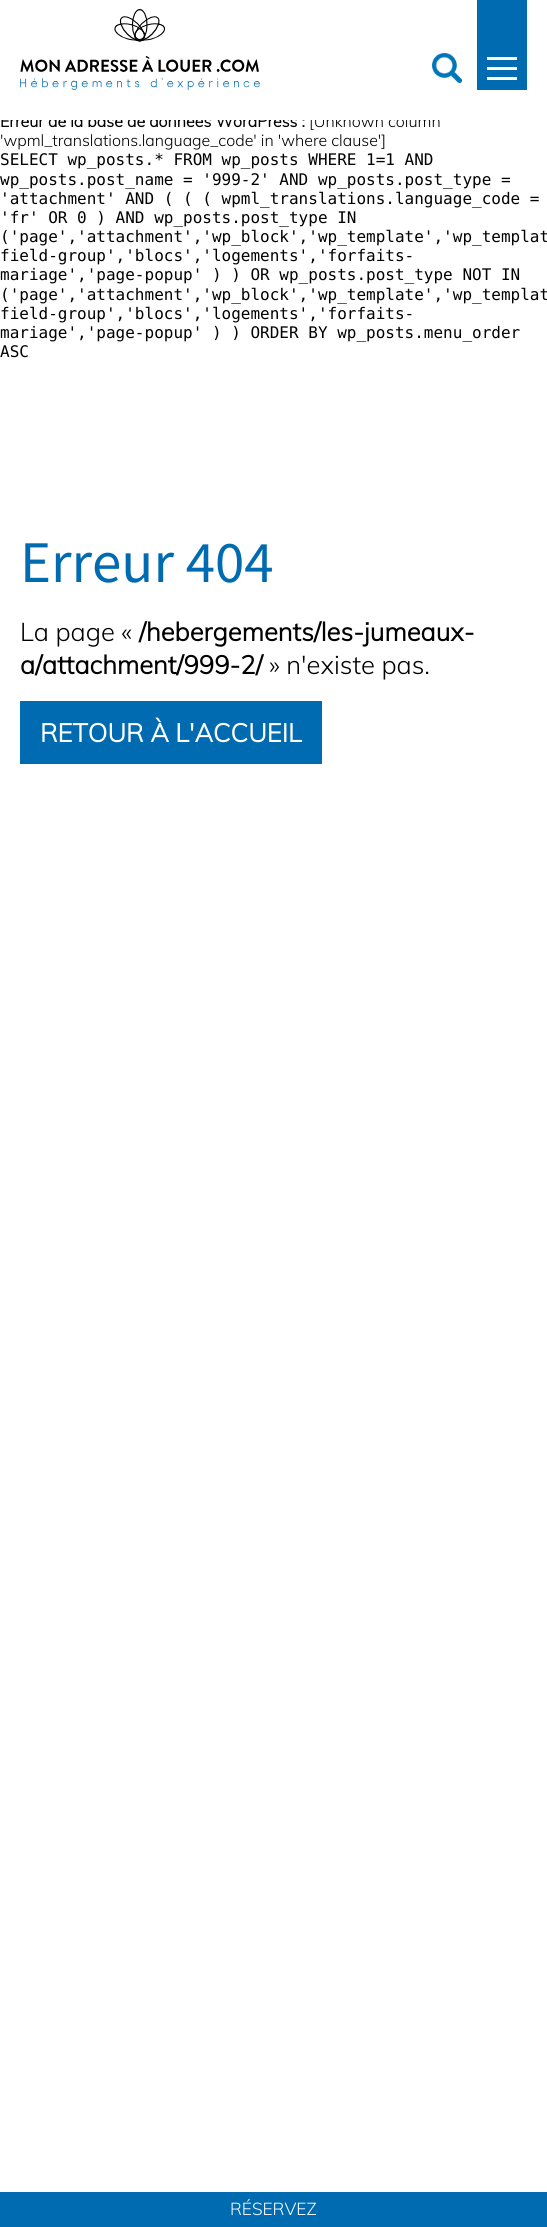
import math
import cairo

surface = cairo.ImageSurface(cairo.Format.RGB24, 547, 2227)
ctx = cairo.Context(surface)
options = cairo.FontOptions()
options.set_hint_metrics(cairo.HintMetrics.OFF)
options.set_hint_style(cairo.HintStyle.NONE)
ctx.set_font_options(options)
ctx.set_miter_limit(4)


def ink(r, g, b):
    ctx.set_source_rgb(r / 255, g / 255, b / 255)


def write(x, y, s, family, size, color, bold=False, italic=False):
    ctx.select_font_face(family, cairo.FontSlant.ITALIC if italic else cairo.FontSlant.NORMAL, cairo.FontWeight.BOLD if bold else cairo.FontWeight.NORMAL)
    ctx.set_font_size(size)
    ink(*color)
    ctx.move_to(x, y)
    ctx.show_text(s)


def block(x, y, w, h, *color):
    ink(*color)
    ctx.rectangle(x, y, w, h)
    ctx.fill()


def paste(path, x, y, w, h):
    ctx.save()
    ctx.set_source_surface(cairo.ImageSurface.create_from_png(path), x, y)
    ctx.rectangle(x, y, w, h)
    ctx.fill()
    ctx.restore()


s1 = dict(family="Muli", size=16, color=(0, 0, 0), bold=True)
s2 = dict(family="Muli Light", size=16, color=(0, 0, 0))
s3 = dict(family="DejaVu Sans Mono", size=16, color=(0, 0, 0))
s4 = dict(family="Source Sans Pro", size=59, color=(0, 107, 176))
s5 = dict(family="Muli Light", size=25.6, color=(0, 0, 0))
s6 = dict(family="Muli", size=25.6, color=(0, 0, 0), bold=True)
s7 = dict(family="Muli", size=25.6, color=(255, 255, 255), bold=True)
s8 = dict(family="Muli Light", size=17.25, color=(255, 255, 255))

ink(255, 255, 255)
ctx.paint()
write(0, 127, "Erreur de la base de données WordPress :", **s1)
write(309, 127, "[Unknown column", **s2)
write(0, 146, "'wpml_translations.language_code' in 'where clause']", **s2)
write(0, 165, "SELECT wp_posts.* FROM wp_posts WHERE 1=1 AND", **s3)
write(0, 185, "wp_posts.post_name = '999-2' AND wp_posts.post_type =", **s3)
write(0, 204, "'attachment' AND ( ( ( wpml_translations.language_code =", **s3)
write(0, 223, "'fr' OR 0 ) AND wp_posts.post_type IN", **s3)
write(0, 242, "('page','attachment','wp_block','wp_template','wp_templat", **s3)
write(0, 261, "field-group','blocs','logements','forfaits-", **s3)
write(0, 280, "mariage','page-popup' ) ) OR wp_posts.post_type NOT IN", **s3)
write(0, 300, "('page','attachment','wp_block','wp_template','wp_templat", **s3)
write(0, 319, "field-group','blocs','logements','forfaits-", **s3)
write(0, 338, "mariage','page-popup' ) ) ORDER BY wp_posts.menu_order", **s3)
write(0, 357, "ASC", **s3)
write(20, 582, "Erreur 404", **s4)
write(20, 641, "La page «", **s5)
write(139, 641, "/hebergements/les-jumeaux-", **s6)
write(20, 674, "a/attachment/999-2/", **s6)
write(269, 674, "» n'existe pas.", **s5)
block(20, 701, 302, 63, 0, 107, 176)
write(40, 742, "RETOUR À L'ACCUEIL", **s7)
block(1, 114, 439, 6, 255, 255, 255)
paste("pic1.png", 20, 9, 240, 81)
block(477, 0, 50, 90, 0, 107, 176)
block(487, 57, 30, 3, 255, 255, 255)
block(487, 67, 30, 3, 255, 255, 255)
block(487, 77, 30, 3, 255, 255, 255)
paste("pic2.png", 432, 53, 30, 30)
block(0, 2192, 547, 35, 0, 107, 176)
write(230, 2215, "RÉSERVEZ", **s8)
surface.write_to_png("screenshot.png")
